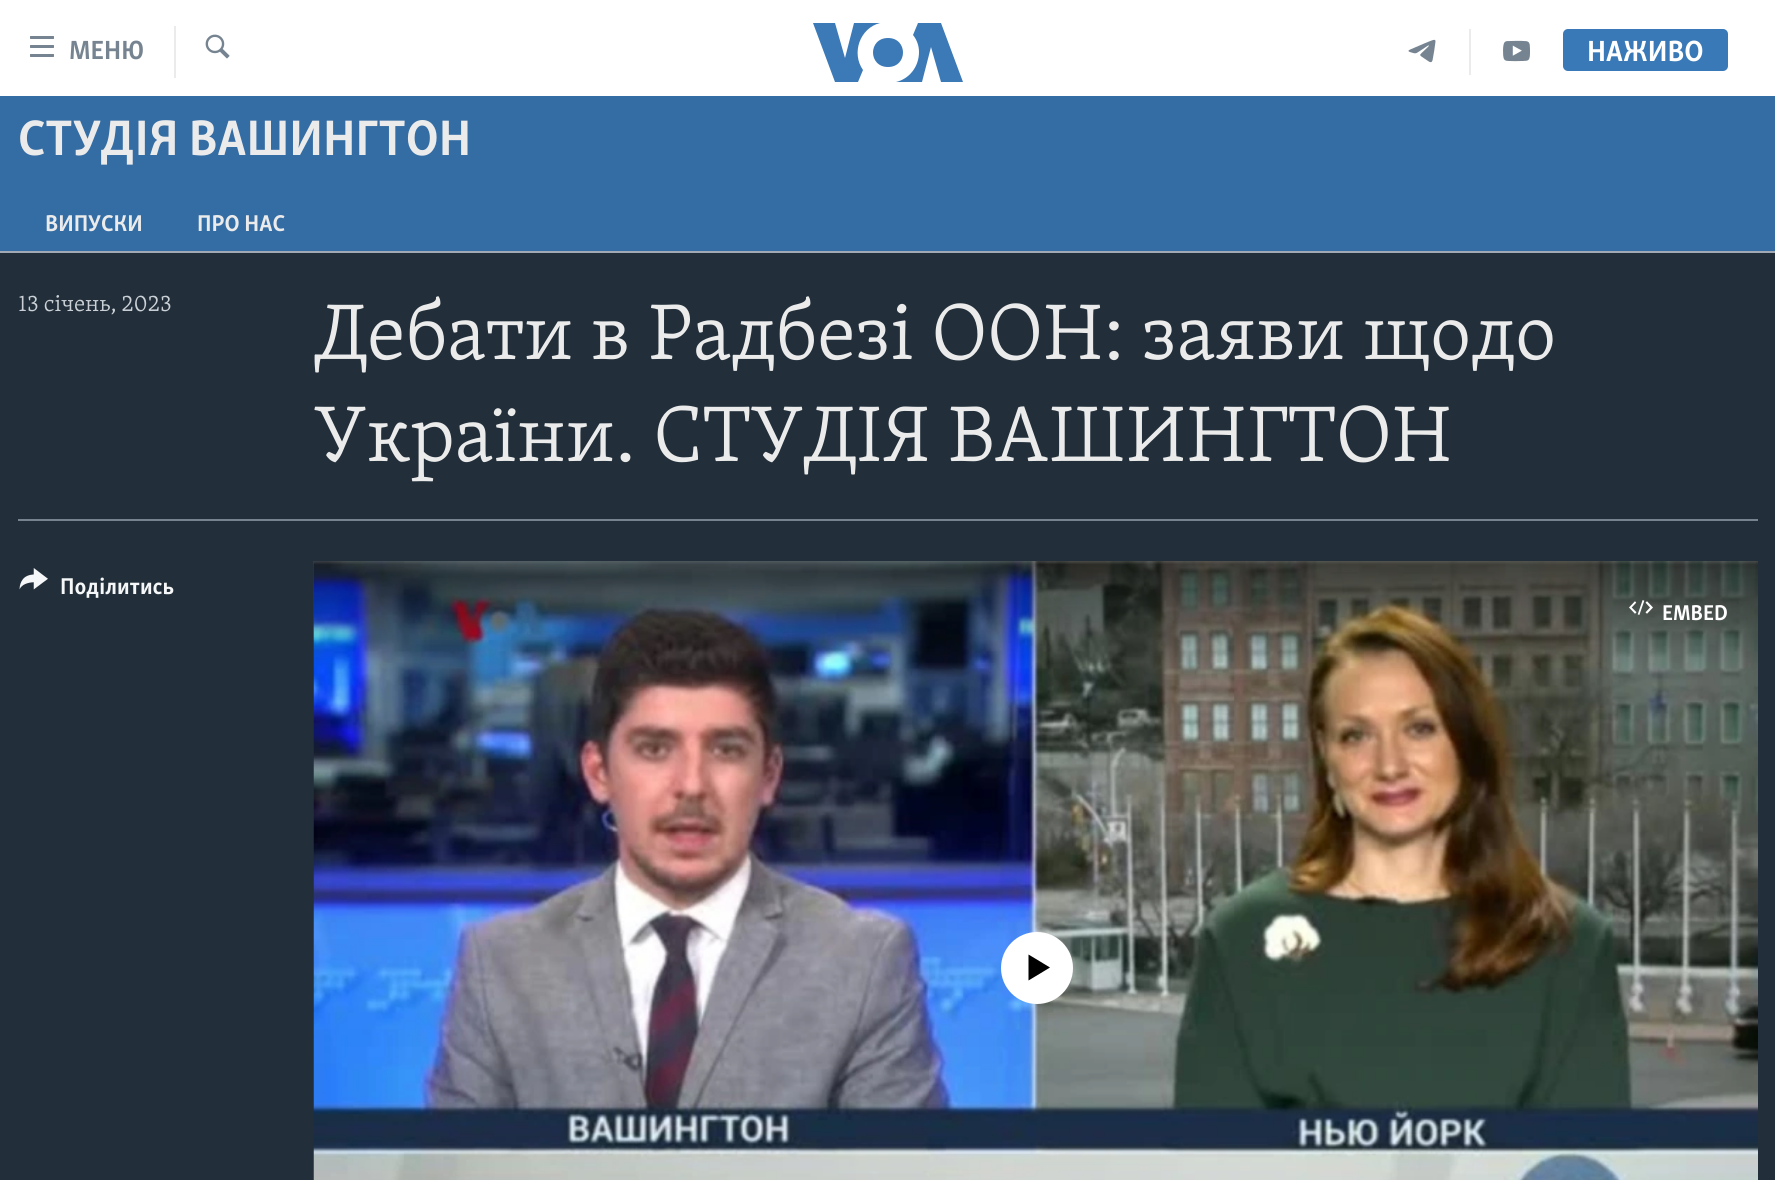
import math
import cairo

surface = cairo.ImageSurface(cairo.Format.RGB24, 1775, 1180)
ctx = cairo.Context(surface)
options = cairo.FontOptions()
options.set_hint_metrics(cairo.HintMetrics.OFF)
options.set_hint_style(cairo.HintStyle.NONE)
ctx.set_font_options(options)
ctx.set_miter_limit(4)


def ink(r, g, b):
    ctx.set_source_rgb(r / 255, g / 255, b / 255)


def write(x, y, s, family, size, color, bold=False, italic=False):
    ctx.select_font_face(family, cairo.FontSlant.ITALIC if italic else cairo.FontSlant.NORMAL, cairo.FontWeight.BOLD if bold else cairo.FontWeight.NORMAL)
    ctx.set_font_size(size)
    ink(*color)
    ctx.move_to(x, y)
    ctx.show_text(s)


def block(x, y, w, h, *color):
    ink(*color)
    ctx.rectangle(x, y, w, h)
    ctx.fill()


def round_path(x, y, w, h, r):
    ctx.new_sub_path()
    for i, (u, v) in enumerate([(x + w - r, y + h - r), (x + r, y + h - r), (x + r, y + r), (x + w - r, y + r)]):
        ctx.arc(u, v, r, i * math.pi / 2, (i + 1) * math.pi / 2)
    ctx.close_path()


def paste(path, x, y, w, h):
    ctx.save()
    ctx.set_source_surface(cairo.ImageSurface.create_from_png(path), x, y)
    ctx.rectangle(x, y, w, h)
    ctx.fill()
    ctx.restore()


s1 = dict(family="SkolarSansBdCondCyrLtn", size=27, color=(118, 132, 146), bold=True)
s2 = dict(family="SkolarSansBdCondCyrLtn", size=30, color=(255, 255, 255), bold=True)
s3 = dict(family="SkolarSansBdCondCyrLtn", size=51.25, color=(235, 235, 235), bold=True)
s4 = dict(family="SkolarSansBdCondCyrLtn", size=23.5, color=(235, 235, 235), bold=True)
s5 = dict(family="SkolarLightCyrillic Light", size=23.5, color=(203, 209, 214))
s6 = dict(family="SkolarLightCyrillic Light", size=81, color=(235, 235, 235))
s7 = dict(family="SkolarSansBdCondCyrLtn", size=23.5, color=(246, 247, 248), bold=True)
s8 = dict(family="SkolarSansBdCondCyrLtn", size=22, color=(255, 255, 255), bold=True)

ink(255, 255, 255)
ctx.paint()
paste("pic1.png", 30, 36, 24, 21)
write(69, 59, "МЕНЮ", **s1)
block(174, 26, 2, 52, 235, 235, 235)
paste("pic2.png", 205, 34, 25, 25)
ink(59, 121, 183)
ctx.new_path()
ctx.move_to(863, 70)
ctx.line_to(858, 82)
ctx.line_to(835, 82)
ctx.line_to(813, 23)
ctx.line_to(835, 23)
ctx.line_to(845, 58)
ctx.line_to(854, 23)
ctx.line_to(880, 23)
ctx.curve_to(860, 28, 851, 53, 863, 70)
ctx.close_path()
ctx.move_to(888, 38)
ctx.curve_to(868, 38, 868, 67, 888, 67)
ctx.curve_to(908, 67, 908, 38, 888, 38)
ctx.close_path()
ctx.move_to(919, 52)
ctx.curve_to(919, 67, 909, 79, 896, 82)
ctx.line_to(922, 82)
ctx.line_to(931, 47)
ctx.line_to(941, 82)
ctx.line_to(963, 82)
ctx.line_to(941, 23)
ctx.line_to(918, 23)
ctx.line_to(913, 35)
ctx.curve_to(917, 40, 919, 46, 919, 52)
ctx.close_path()
ctx.fill()
block(1469, 29, 2, 46, 235, 235, 235)
paste("pic3.png", 1408, 39, 28, 24)
paste("pic4.png", 1503, 40, 27, 22)
ink(58, 121, 183)
round_path(1563, 29, 165, 42, 5)
ctx.fill()
write(1587, 61, "НАЖИВО", **s2)
block(0, 96, 1775, 155, 52, 108, 164)
write(18, 155, "СТУДІЯ ВАШИНГТОН", **s3)
write(45, 231, "ВИПУСКИ", **s4)
write(197, 231, "ПРО НАС", **s4)
block(0, 253, 1775, 927, 34, 47, 58)
block(0, 251, 1775, 2, 161, 170, 180)
write(18, 311, "13 січень, 2023", **s5)
write(314, 359, "Дебати в Радбезі ООН: заяви щодо", **s6)
write(314, 461, "України. СТУДІЯ ВАШИНГТОН", **s6)
block(18, 519, 1740, 2, 118, 132, 146)
paste("pic5.png", 19, 568, 29, 22)
write(60, 594, "Поділитись", **s7)
paste("pic6.png", 313, 561, 1445, 619)
paste("pic7.png", 1629, 600, 24, 15)
write(1662, 620, "EMBED", **s8)
ctx.new_path()
ctx.arc(1037, 968, 36, 0, 2 * math.pi)
ctx.fill()
ink(0, 0, 0)
ctx.new_path()
ctx.move_to(1028.5, 980.5)
ctx.line_to(1050, 967.5)
ctx.line_to(1028.5, 954.5)
ctx.close_path()
ctx.fill()
surface.write_to_png("screenshot.png")
